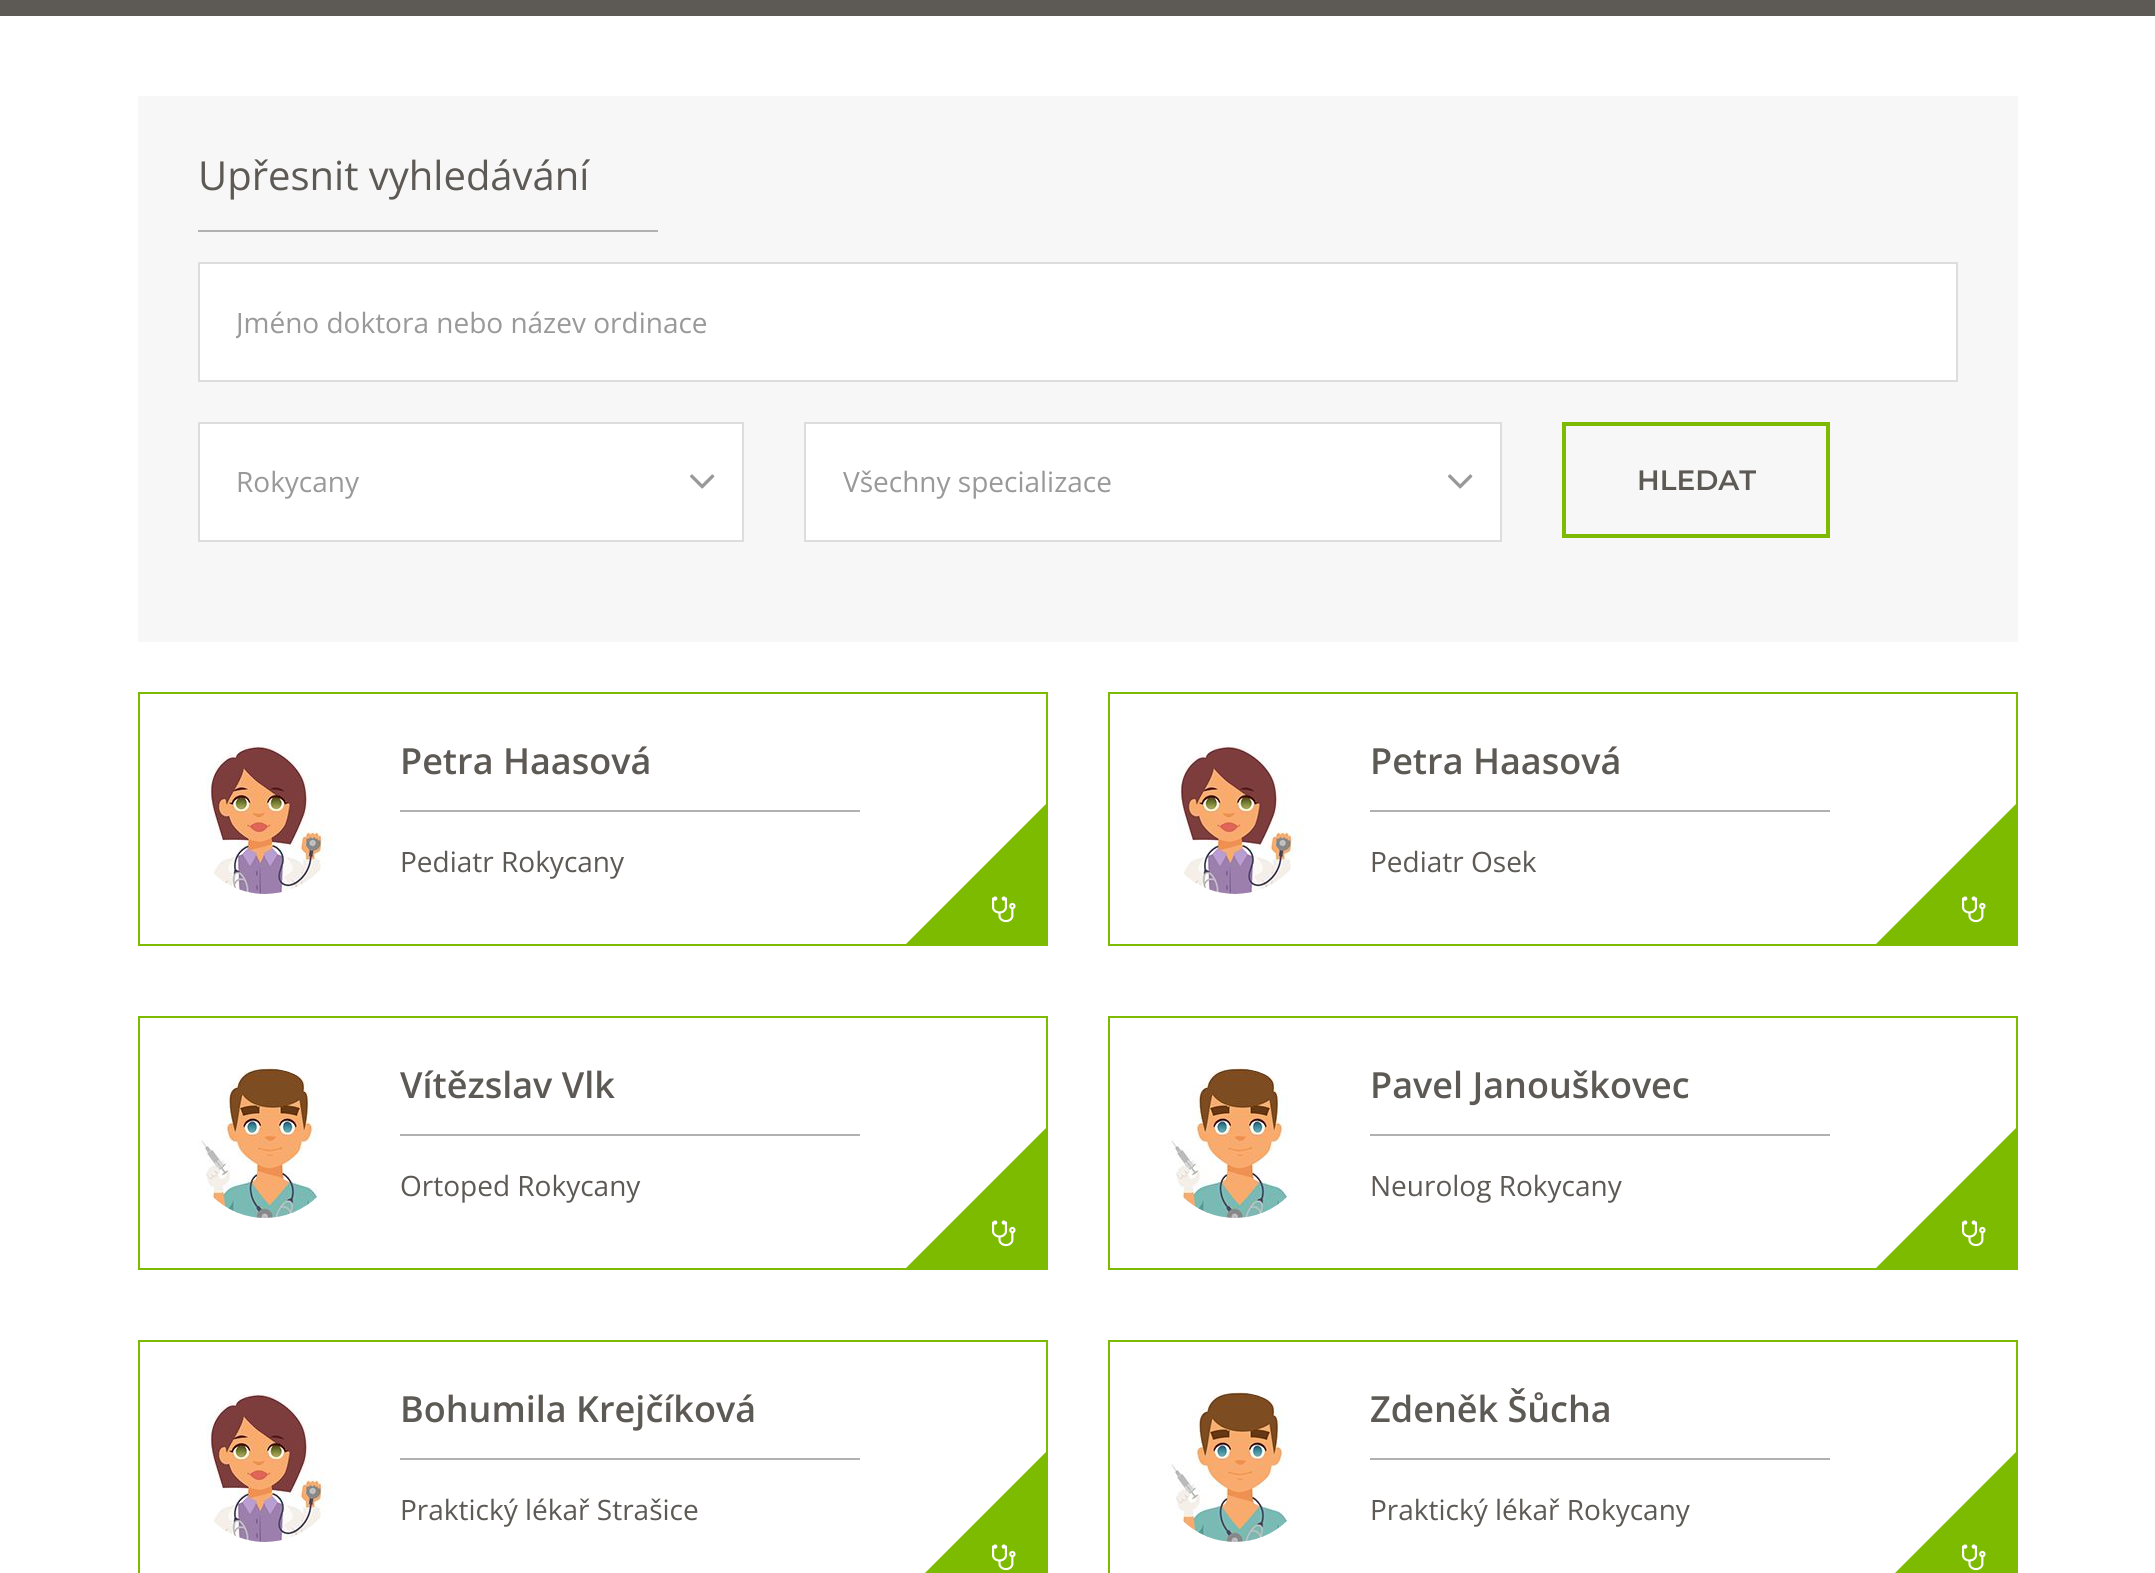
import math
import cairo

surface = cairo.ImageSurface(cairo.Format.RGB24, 2155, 1573)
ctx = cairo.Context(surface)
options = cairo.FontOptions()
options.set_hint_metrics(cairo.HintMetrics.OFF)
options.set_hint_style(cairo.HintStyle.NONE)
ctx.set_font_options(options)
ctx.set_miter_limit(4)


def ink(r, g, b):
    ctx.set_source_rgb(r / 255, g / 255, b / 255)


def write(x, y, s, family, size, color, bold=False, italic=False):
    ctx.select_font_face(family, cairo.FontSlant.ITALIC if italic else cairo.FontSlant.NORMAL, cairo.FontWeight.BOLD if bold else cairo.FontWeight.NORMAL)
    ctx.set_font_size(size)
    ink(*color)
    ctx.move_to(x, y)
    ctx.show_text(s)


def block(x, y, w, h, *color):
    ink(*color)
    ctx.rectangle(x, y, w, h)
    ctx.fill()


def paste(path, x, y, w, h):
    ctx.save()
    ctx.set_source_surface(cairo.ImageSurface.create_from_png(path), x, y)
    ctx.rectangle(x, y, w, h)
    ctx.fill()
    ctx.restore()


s1 = dict(family="Open Sans", size=40, color=(93, 89, 85))
s2 = dict(family="Open Sans", size=28, color=(153, 153, 153))
s3 = dict(family="Montserrat SemiBold", size=28, color=(93, 89, 85))
s4 = dict(family="Open Sans SemiBold", size=36, color=(93, 89, 85))
s5 = dict(family="Open Sans", size=28, color=(93, 89, 85))

ink(255, 255, 255)
ctx.paint()
block(0, 0, 2155, 16, 93, 89, 85)
block(138, 96, 1880, 546, 247, 247, 247)
write(198, 190, "Upřesnit vyhledávání", **s1)
block(198, 230, 460, 2, 177, 177, 177)
ink(255, 255, 255)
ctx.rectangle(199, 263, 1758, 118)
ctx.fill_preserve()
ink(221, 221, 221)
ctx.stroke()
ctx.save()
ctx.rectangle(236, 304, 1684, 38)
ctx.clip()
write(236, 333, "Jméno doktora nebo název ordinace", **s2)
ctx.restore()
ink(255, 255, 255)
ctx.rectangle(199, 423, 544, 118)
ctx.fill_preserve()
ink(221, 221, 221)
ctx.stroke()
write(236, 492, "Rokycany", **s2)
paste("pic1.png", 690, 474, 25, 15)
ink(255, 255, 255)
ctx.rectangle(805, 423, 696, 118)
ctx.fill_preserve()
ink(221, 221, 221)
ctx.stroke()
write(843, 492, "Všechny specializace", **s2)
paste("pic1.png", 1448, 474, 25, 15)
ctx.rectangle(1564, 424, 264, 112)
ink(125, 187, 0)
ctx.set_line_width(4)
ctx.stroke()
write(1637, 490, "HLEDAT", **s3)
ctx.rectangle(139, 693, 908, 252)
ink(125, 187, 0)
ctx.set_line_width(2)
ctx.stroke()
paste("pic2.png", 206, 744, 128, 150)
write(400, 774, "Petra Haasová", **s4)
block(400, 810, 460, 2, 177, 177, 177)
write(400, 872, "Pediatr Rokycany", **s5)
ink(125, 187, 0)
ctx.new_path()
ctx.move_to(1046, 944)
ctx.line_to(906, 944)
ctx.line_to(1046, 804)
ctx.close_path()
ctx.fill()
paste("pic3.png", 992, 896, 24, 27)
ctx.rectangle(1109, 693, 908, 252)
ctx.stroke()
paste("pic4.png", 1176, 744, 128, 150)
write(1370, 774, "Petra Haasová", **s4)
block(1370, 810, 460, 2, 177, 177, 177)
write(1370, 872, "Pediatr Osek", **s5)
ink(125, 187, 0)
ctx.new_path()
ctx.move_to(2016, 944)
ctx.line_to(1876, 944)
ctx.line_to(2016, 804)
ctx.close_path()
ctx.fill()
paste("pic3.png", 1962, 896, 24, 27)
ctx.rectangle(139, 1017, 908, 252)
ctx.stroke()
paste("pic5.png", 198, 1068, 120, 150)
write(400, 1098, "Vítězslav Vlk", **s4)
block(400, 1134, 460, 2, 177, 177, 177)
write(400, 1196, "Ortoped Rokycany", **s5)
ink(125, 187, 0)
ctx.new_path()
ctx.move_to(1046, 1268)
ctx.line_to(906, 1268)
ctx.line_to(1046, 1128)
ctx.close_path()
ctx.fill()
paste("pic3.png", 992, 1220, 24, 27)
ctx.rectangle(1109, 1017, 908, 252)
ctx.stroke()
paste("pic6.png", 1168, 1068, 120, 150)
write(1370, 1098, "Pavel Janouškovec", **s4)
block(1370, 1134, 460, 2, 177, 177, 177)
write(1370, 1196, "Neurolog Rokycany", **s5)
ink(125, 187, 0)
ctx.new_path()
ctx.move_to(2016, 1268)
ctx.line_to(1876, 1268)
ctx.line_to(2016, 1128)
ctx.close_path()
ctx.fill()
paste("pic3.png", 1962, 1220, 24, 27)
ctx.rectangle(139, 1341, 908, 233)
ctx.stroke()
paste("pic2.png", 206, 1392, 128, 150)
write(400, 1422, "Bohumila Krejčíková", **s4)
block(400, 1458, 460, 2, 177, 177, 177)
write(400, 1520, "Praktický lékař Strašice", **s5)
ink(125, 187, 0)
ctx.new_path()
ctx.move_to(1046, 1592)
ctx.line_to(906, 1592)
ctx.line_to(1046, 1452)
ctx.close_path()
ctx.fill()
paste("pic3.png", 992, 1544, 24, 27)
ctx.rectangle(1109, 1341, 908, 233)
ctx.stroke()
paste("pic6.png", 1168, 1392, 120, 150)
write(1370, 1422, "Zdeněk Šůcha", **s4)
block(1370, 1458, 460, 2, 177, 177, 177)
write(1370, 1520, "Praktický lékař Rokycany", **s5)
ink(125, 187, 0)
ctx.new_path()
ctx.move_to(2016, 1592)
ctx.line_to(1876, 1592)
ctx.line_to(2016, 1452)
ctx.close_path()
ctx.fill()
paste("pic3.png", 1962, 1544, 24, 27)
surface.write_to_png("screenshot.png")
